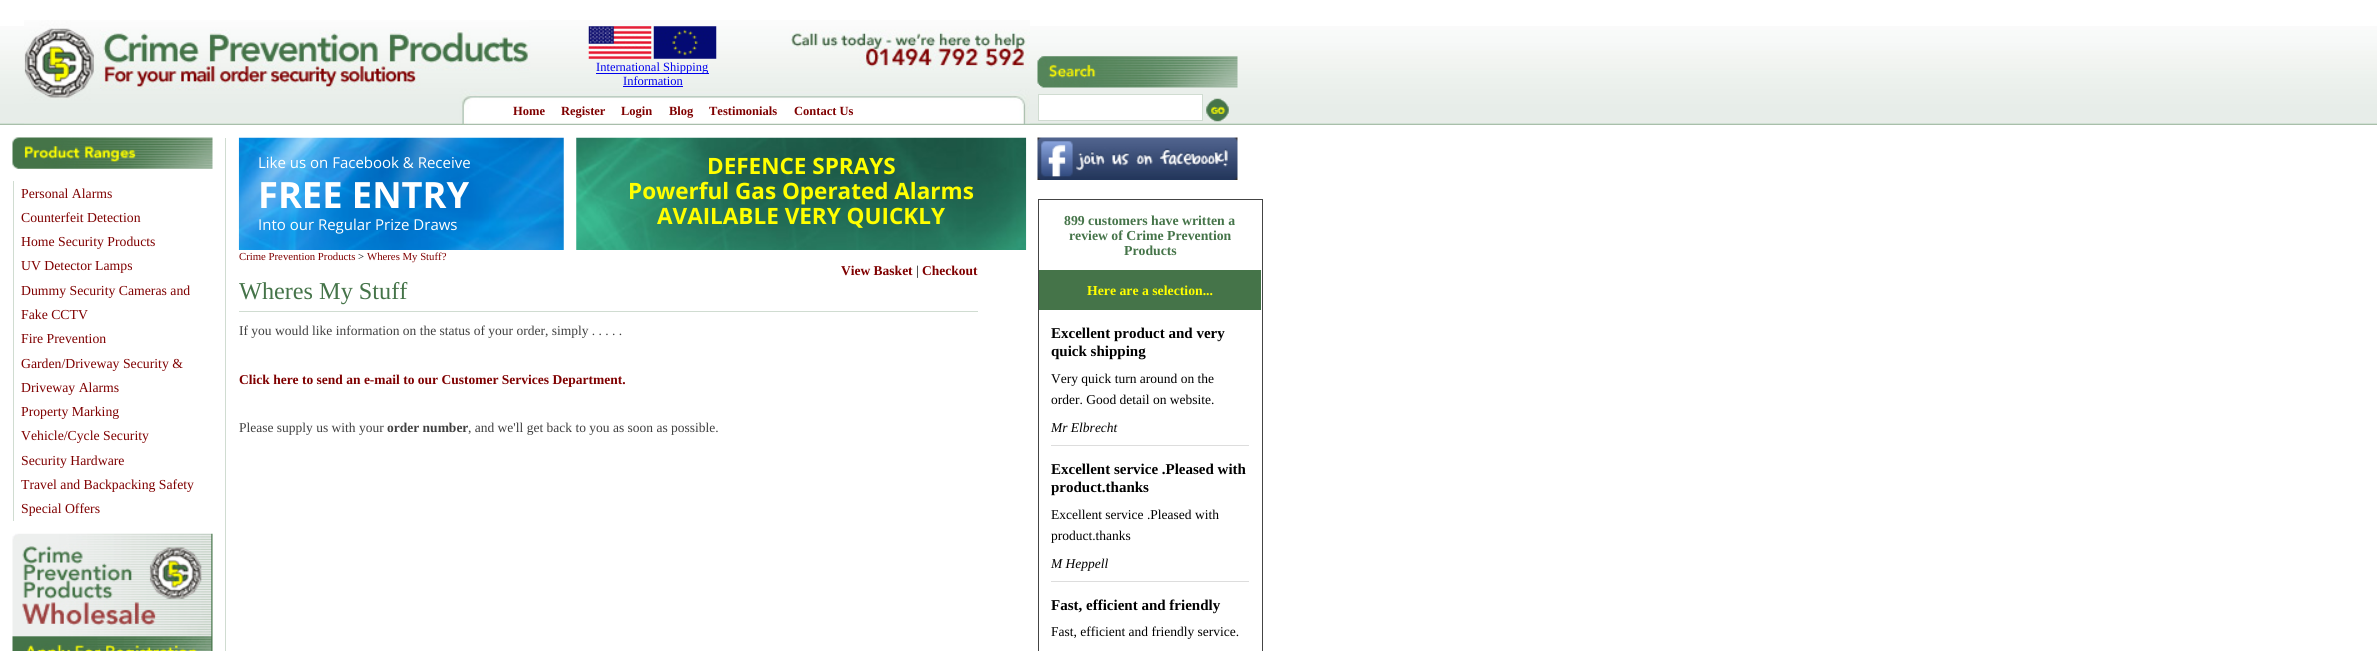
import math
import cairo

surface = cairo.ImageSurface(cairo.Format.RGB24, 2377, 651)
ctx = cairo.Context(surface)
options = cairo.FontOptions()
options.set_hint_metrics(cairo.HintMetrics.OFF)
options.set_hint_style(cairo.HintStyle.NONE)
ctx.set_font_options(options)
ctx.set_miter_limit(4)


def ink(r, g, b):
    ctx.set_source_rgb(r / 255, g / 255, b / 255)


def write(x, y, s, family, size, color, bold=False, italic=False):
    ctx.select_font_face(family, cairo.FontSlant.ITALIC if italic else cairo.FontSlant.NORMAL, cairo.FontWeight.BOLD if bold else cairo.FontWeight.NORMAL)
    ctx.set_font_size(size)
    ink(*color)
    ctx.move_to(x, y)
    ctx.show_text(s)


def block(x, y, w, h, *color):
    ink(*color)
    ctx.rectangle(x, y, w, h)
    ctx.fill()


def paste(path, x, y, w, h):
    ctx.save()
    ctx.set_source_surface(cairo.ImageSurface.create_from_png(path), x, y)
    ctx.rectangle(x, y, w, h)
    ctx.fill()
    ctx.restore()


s1 = dict(family="Liberation Serif", size=12.5, color=(0, 0, 238))
s2 = dict(family="Liberation Serif", size=12.5, color=(127, 0, 0), bold=True)
s3 = dict(family="Liberation Serif", size=13.75, color=(127, 0, 0))
s4 = dict(family="Open Sans", size=15, color=(255, 255, 255))
s5 = dict(family="Open Sans", size=36.25, color=(255, 255, 255), bold=True)
s6 = dict(family="Open Sans", size=22.5, color=(255, 255, 0), bold=True)
s7 = dict(family="Liberation Serif", size=10.75, color=(127, 0, 0))
s8 = dict(family="Liberation Serif", size=10.75, color=(0, 0, 0))
s9 = dict(family="Liberation Serif", size=13.5, color=(127, 0, 0), bold=True)
s10 = dict(family="Liberation Serif", size=13.5, color=(0, 0, 0))
s11 = dict(family="Liberation Serif", size=24.25, color=(69, 116, 73))
s12 = dict(family="Liberation Serif", size=13.5, color=(64, 64, 64))
s13 = dict(family="Liberation Serif", size=13.5, color=(64, 64, 64), bold=True)
s14 = dict(family="Liberation Serif", size=13.75, color=(69, 116, 73), bold=True)
s15 = dict(family="Liberation Serif", size=13.75, color=(255, 255, 0), bold=True)
s16 = dict(family="Liberation Serif", size=15, color=(0, 0, 0), bold=True)
s17 = dict(family="Liberation Serif", size=13.5, color=(0, 0, 0), italic=True)

ink(255, 255, 255)
ctx.paint()
paste("pic1.png", 0, 26, 2377, 99)
paste("pic2.png", 24, 20, 1006, 105)
paste("pic3.png", 1037, 56, 201, 32)
ink(255, 255, 255)
ctx.rectangle(1038.5, 94.5, 164, 26)
ctx.fill_preserve()
ink(208, 220, 209)
ctx.set_line_width(1)
ctx.stroke()
paste("pic4.png", 1206, 98, 23, 24)
paste("pic5.png", 588, 26, 64, 33)
paste("pic6.png", 653, 26, 64, 33)
block(596, 73, 113, 1, 0, 0, 238)
write(596, 71, "International Shipping", **s1)
write(623, 85, "Information", **s1)
block(623, 86, 60, 1, 0, 0, 238)
write(513, 115, "Home", **s2)
write(561, 115, "Register", **s2)
write(621, 115, "Login", **s2)
write(669, 115, "Blog", **s2)
write(709, 115, "Testimonials", **s2)
write(794, 115, "Contact Us", **s2)
paste("pic7.png", 12, 137, 201, 32)
block(13, 181, 1, 340, 208, 220, 209)
write(21, 198, "Personal Alarms", **s3)
write(21, 222, "Counterfeit Detection", **s3)
write(21, 246, "Home Security Products", **s3)
write(21, 270, "UV Detector Lamps", **s3)
write(21, 295, "Dummy Security Cameras and", **s3)
write(21, 319, "Fake CCTV", **s3)
write(21, 343, "Fire Prevention", **s3)
write(21, 368, "Garden/Driveway Security &", **s3)
write(21, 392, "Driveway Alarms", **s3)
write(21, 416, "Property Marking", **s3)
write(21, 440, "Vehicle/Cycle Security", **s3)
write(21, 465, "Security Hardware", **s3)
write(21, 489, "Travel and Backpacking Safety", **s3)
write(21, 513, "Special Offers", **s3)
paste("pic8.png", 12, 533, 201, 118)
block(225, 138, 1, 513, 208, 220, 209)
paste("pic9.png", 238, 137, 326, 113)
write(258, 168, "Like us on Facebook & Receive", **s4)
write(258, 208, "FREE ENTRY", **s5)
write(258, 230, "Into our Regular Prize Draws", **s4)
paste("pic10.png", 576, 137, 451, 113)
write(707, 174, "DEFENCE SPRAYS", **s6)
write(628, 199, "Powerful Gas Operated Alarms", **s6)
write(657, 224, "AVAILABLE VERY QUICKLY", **s6)
write(239, 260, "Crime Prevention Products", **s7)
write(358, 260, ">", **s8)
write(367, 260, "Wheres My Stuff?", **s7)
write(841, 275, "View Basket", **s9)
write(916, 275, "|", **s10)
write(922, 275, "Checkout", **s9)
write(239, 299, "Wheres My Stuff", **s11)
block(239, 311, 739, 1, 208, 220, 209)
write(239, 335, "If you would like information on the status of your order, simply . . . . .", **s12)
write(239, 384, "Click here to send an e-mail to our Customer Services Department.", **s9)
write(239, 432, "Please supply us with your", **s12)
write(387, 432, "order number", **s13)
write(468, 432, ", and we'll get back to you as soon as possible.", **s12)
paste("pic11.png", 1037, 137, 201, 43)
ctx.rectangle(1038.5, 199.5, 224, 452)
ink(68, 68, 68)
ctx.stroke()
write(1064, 225, "899 customers have written a", **s14)
write(1069, 240, "review of Crime Prevention", **s14)
write(1124, 255, "Products", **s14)
block(1039, 270, 222, 40, 69, 116, 73)
write(1087, 295, "Here are a selection...", **s15)
block(1051, 445, 198, 1, 221, 221, 221)
write(1051, 338, "Excellent product and very", **s16)
write(1051, 356, "quick shipping", **s16)
write(1051, 383, "Very quick turn around on the", **s10)
write(1051, 404, "order. Good detail on website.", **s10)
write(1051, 432, "Mr Elbrecht", **s17)
block(1051, 581, 198, 1, 221, 221, 221)
write(1051, 474, "Excellent service .Pleased with", **s16)
write(1051, 492, "product.thanks", **s16)
write(1051, 519, "Excellent service .Pleased with", **s10)
write(1051, 540, "product.thanks", **s10)
write(1051, 568, "M Heppell", **s17)
write(1051, 610, "Fast, efficient and friendly", **s16)
write(1051, 636, "Fast, efficient and friendly service.", **s10)
surface.write_to_png("screenshot.png")
